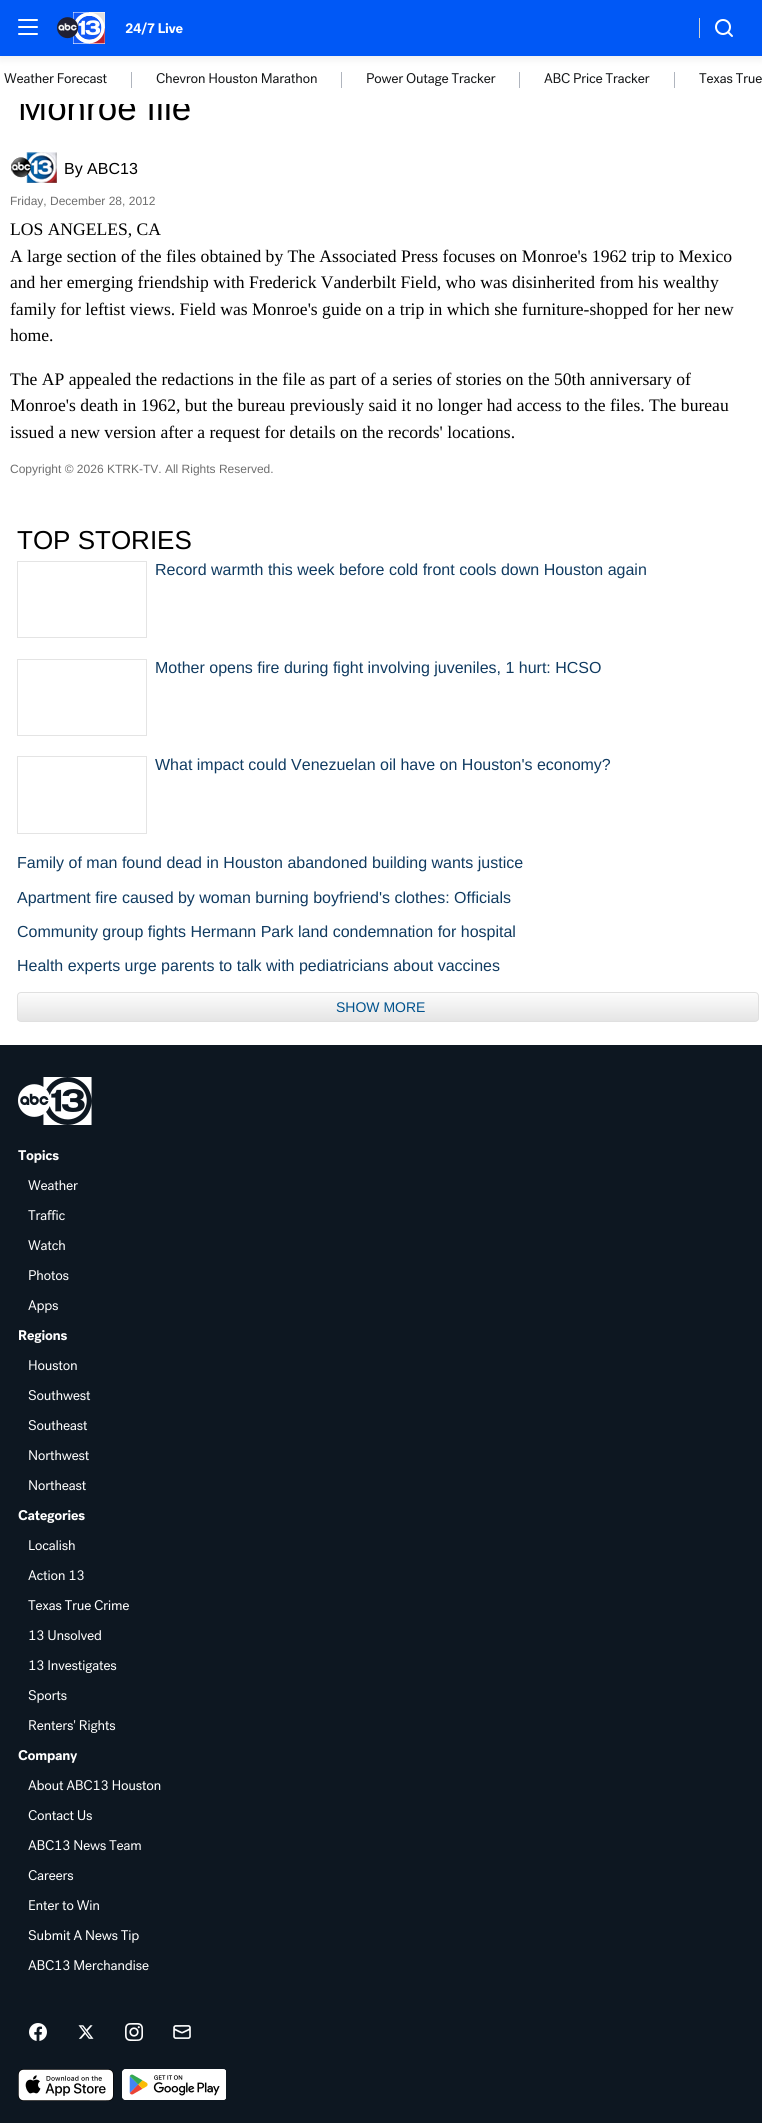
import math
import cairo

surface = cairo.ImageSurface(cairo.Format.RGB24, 762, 2123)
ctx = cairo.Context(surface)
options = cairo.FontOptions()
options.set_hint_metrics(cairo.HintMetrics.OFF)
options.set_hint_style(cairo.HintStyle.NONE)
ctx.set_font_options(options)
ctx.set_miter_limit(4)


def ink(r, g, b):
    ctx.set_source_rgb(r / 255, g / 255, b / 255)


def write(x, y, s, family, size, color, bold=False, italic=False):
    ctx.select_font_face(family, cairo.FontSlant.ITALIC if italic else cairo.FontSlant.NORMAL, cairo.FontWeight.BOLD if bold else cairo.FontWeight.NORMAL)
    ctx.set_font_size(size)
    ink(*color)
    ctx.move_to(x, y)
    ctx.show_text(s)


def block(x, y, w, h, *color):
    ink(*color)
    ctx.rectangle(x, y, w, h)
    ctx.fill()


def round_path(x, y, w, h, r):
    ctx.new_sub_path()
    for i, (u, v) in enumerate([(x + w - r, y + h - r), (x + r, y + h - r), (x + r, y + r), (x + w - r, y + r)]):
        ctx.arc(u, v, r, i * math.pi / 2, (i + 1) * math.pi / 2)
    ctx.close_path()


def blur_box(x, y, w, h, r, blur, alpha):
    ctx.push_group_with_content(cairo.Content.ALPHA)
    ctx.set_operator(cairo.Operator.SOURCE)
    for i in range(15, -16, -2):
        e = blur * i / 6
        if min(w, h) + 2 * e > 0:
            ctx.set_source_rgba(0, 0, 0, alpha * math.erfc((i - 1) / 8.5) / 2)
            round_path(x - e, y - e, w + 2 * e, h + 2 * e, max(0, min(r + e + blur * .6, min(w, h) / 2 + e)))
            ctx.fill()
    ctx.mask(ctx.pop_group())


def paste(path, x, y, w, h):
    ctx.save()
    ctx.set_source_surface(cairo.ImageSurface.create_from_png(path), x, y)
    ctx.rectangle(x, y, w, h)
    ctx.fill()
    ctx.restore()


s1 = dict(family="Liberation Sans", size=35, color=(0, 0, 0))
s2 = dict(family="Liberation Sans", size=16, color=(0, 0, 0))
s3 = dict(family="Liberation Sans", size=12, color=(110, 110, 110))
s4 = dict(family="Liberation Serif", size=17.6, color=(0, 0, 0))
s5 = dict(family="Liberation Sans", size=26, color=(0, 0, 0))
s6 = dict(family="Liberation Sans", size=16, color=(16, 59, 97))
s7 = dict(family="Liberation Sans", size=14, color=(0, 82, 141))

ink(255, 255, 255)
ctx.paint()
paste("pic4.png", 4, 73, 103, 11)
block(131, 72, 1, 16, 176, 181, 190)
paste("pic5.png", 156, 73, 161, 11)
block(341, 72, 1, 16, 176, 181, 190)
paste("pic6.png", 367, 73, 129, 13)
block(519, 72, 1, 16, 176, 181, 190)
paste("pic7.png", 544, 73, 106, 11)
block(674, 72, 1, 16, 176, 181, 190)
paste("pic8.png", 699, 73, 63, 11)
ink(0, 0, 0)
blur_box(0, 2, 762, 56, 0, 5, 0.08)
block(0, 0, 762, 56, 0, 88, 246)
ink(255, 255, 255)
round_path(18, 26, 20, 2, 1)
ctx.fill()
round_path(18, 19, 20, 2, 1)
ctx.fill()
round_path(18, 33, 20, 2, 1)
ctx.fill()
paste("pic1.png", 57, 12, 48, 32)
paste("pic2.png", 125, 22, 58, 13)
block(699, 18, 1, 20, 206, 207, 207)
paste("pic3.png", 715, 19, 18, 18)
write(18, 120, "Monroe file", **s1)
block(20, 94, 169, 10, 255, 255, 255)
paste("pic9.png", 11, 152, 46, 31)
write(64, 174, "By ABC13", **s2)
write(10, 205, "Friday, December 28, 2012", **s3)
write(10, 235, "LOS ANGELES, CA", **s4)
write(10, 262, "A large section of the files obtained by The Associated Press focuses on Monroe's 1962 trip to Mexico", **s4)
write(10, 288, "and her emerging friendship with Frederick Vanderbilt Field, who was disinherited from his wealthy", **s4)
write(10, 315, "family for leftist views. Field was Monroe's guide on a trip in which she furniture-shopped for her new", **s4)
write(10, 341, "home.", **s4)
write(10, 385, "The AP appealed the redactions in the file as part of a series of stories on the 50th anniversary of", **s4)
write(10, 411, "Monroe's death in 1962, but the bureau previously said it no longer had access to the files. The bureau", **s4)
write(10, 438, "issued a new version after a request for details on the records' locations.", **s4)
write(10, 473, "Copyright © 2026 KTRK-TV. All Rights Reserved.", **s3)
write(17, 549, "TOP STORIES", **s5)
ctx.rectangle(17.5, 561.5, 129, 76)
ink(228, 228, 228)
ctx.set_line_width(1)
ctx.stroke()
write(155, 575, "Record warmth this week before cold front cools down Houston again", **s6)
ctx.rectangle(17.5, 659.5, 129, 76)
ink(228, 228, 228)
ctx.stroke()
write(155, 673, "Mother opens fire during fight involving juveniles, 1 hurt: HCSO", **s6)
ctx.rectangle(17.5, 756.5, 129, 77)
ink(228, 228, 228)
ctx.stroke()
write(155, 770, "What impact could Venezuelan oil have on Houston's economy?", **s6)
write(17, 868, "Family of man found dead in Houston abandoned building wants justice", **s6)
write(17, 903, "Apartment fire caused by woman burning boyfriend's clothes: Officials", **s6)
write(17, 937, "Community group fights Hermann Park land condemnation for hospital", **s6)
write(17, 971, "Health experts urge parents to talk with pediatricians about vaccines", **s6)
ctx.save()
round_path(17, 992, 742, 30, 4)
ctx.clip()
gradient = cairo.LinearGradient(388, 993, 388, 1021)
gradient.add_color_stop_rgba(0, 0.988, 0.988, 0.988, 1)
gradient.add_color_stop_rgba(1, 0.898, 0.898, 0.898, 1)
ctx.set_source(gradient)
ctx.rectangle(17, 993, 742, 28)
ctx.fill()
ctx.restore()
round_path(17.5, 992.5, 741, 29, 3.5)
ink(224, 224, 224)
ctx.stroke()
write(336, 1012, "SHOW MORE", **s7)
block(0, 1045, 762, 1078, 13, 23, 33)
paste("pic10.png", 18, 1077, 74, 48)
paste("pic11.png", 18, 1150, 41, 13)
paste("pic12.png", 28, 1180, 50, 11)
paste("pic13.png", 28, 1210, 37, 11)
paste("pic14.png", 28, 1240, 37, 11)
paste("pic15.png", 29, 1270, 40, 11)
paste("pic16.png", 28, 1300, 30, 13)
paste("pic17.png", 19, 1330, 48, 13)
paste("pic18.png", 29, 1360, 48, 11)
paste("pic19.png", 28, 1390, 63, 11)
paste("pic20.png", 28, 1420, 60, 11)
paste("pic21.png", 29, 1450, 60, 11)
paste("pic22.png", 29, 1480, 57, 11)
paste("pic23.png", 18, 1510, 67, 13)
paste("pic24.png", 29, 1540, 46, 11)
paste("pic25.png", 28, 1570, 56, 11)
paste("pic26.png", 28, 1600, 101, 11)
paste("pic27.png", 29, 1630, 72, 11)
paste("pic28.png", 29, 1660, 88, 13)
paste("pic29.png", 28, 1690, 39, 13)
paste("pic30.png", 29, 1720, 87, 13)
paste("pic31.png", 18, 1750, 60, 13)
paste("pic32.png", 28, 1780, 133, 11)
paste("pic33.png", 28, 1810, 64, 11)
paste("pic34.png", 28, 1840, 113, 11)
paste("pic35.png", 28, 1870, 46, 11)
paste("pic36.png", 29, 1900, 70, 11)
paste("pic37.png", 28, 1930, 111, 13)
paste("pic38.png", 28, 1960, 121, 11)
paste("pic39.png", 29, 2023, 18, 18)
paste("pic40.png", 78, 2025, 16, 14)
paste("pic41.png", 125, 2023, 18, 18)
paste("pic42.png", 173, 2025, 18, 14)
paste("pic43.png", 18, 2069, 96, 32)
paste("pic44.png", 122, 2069, 104, 31)
surface.write_to_png("screenshot.png")
